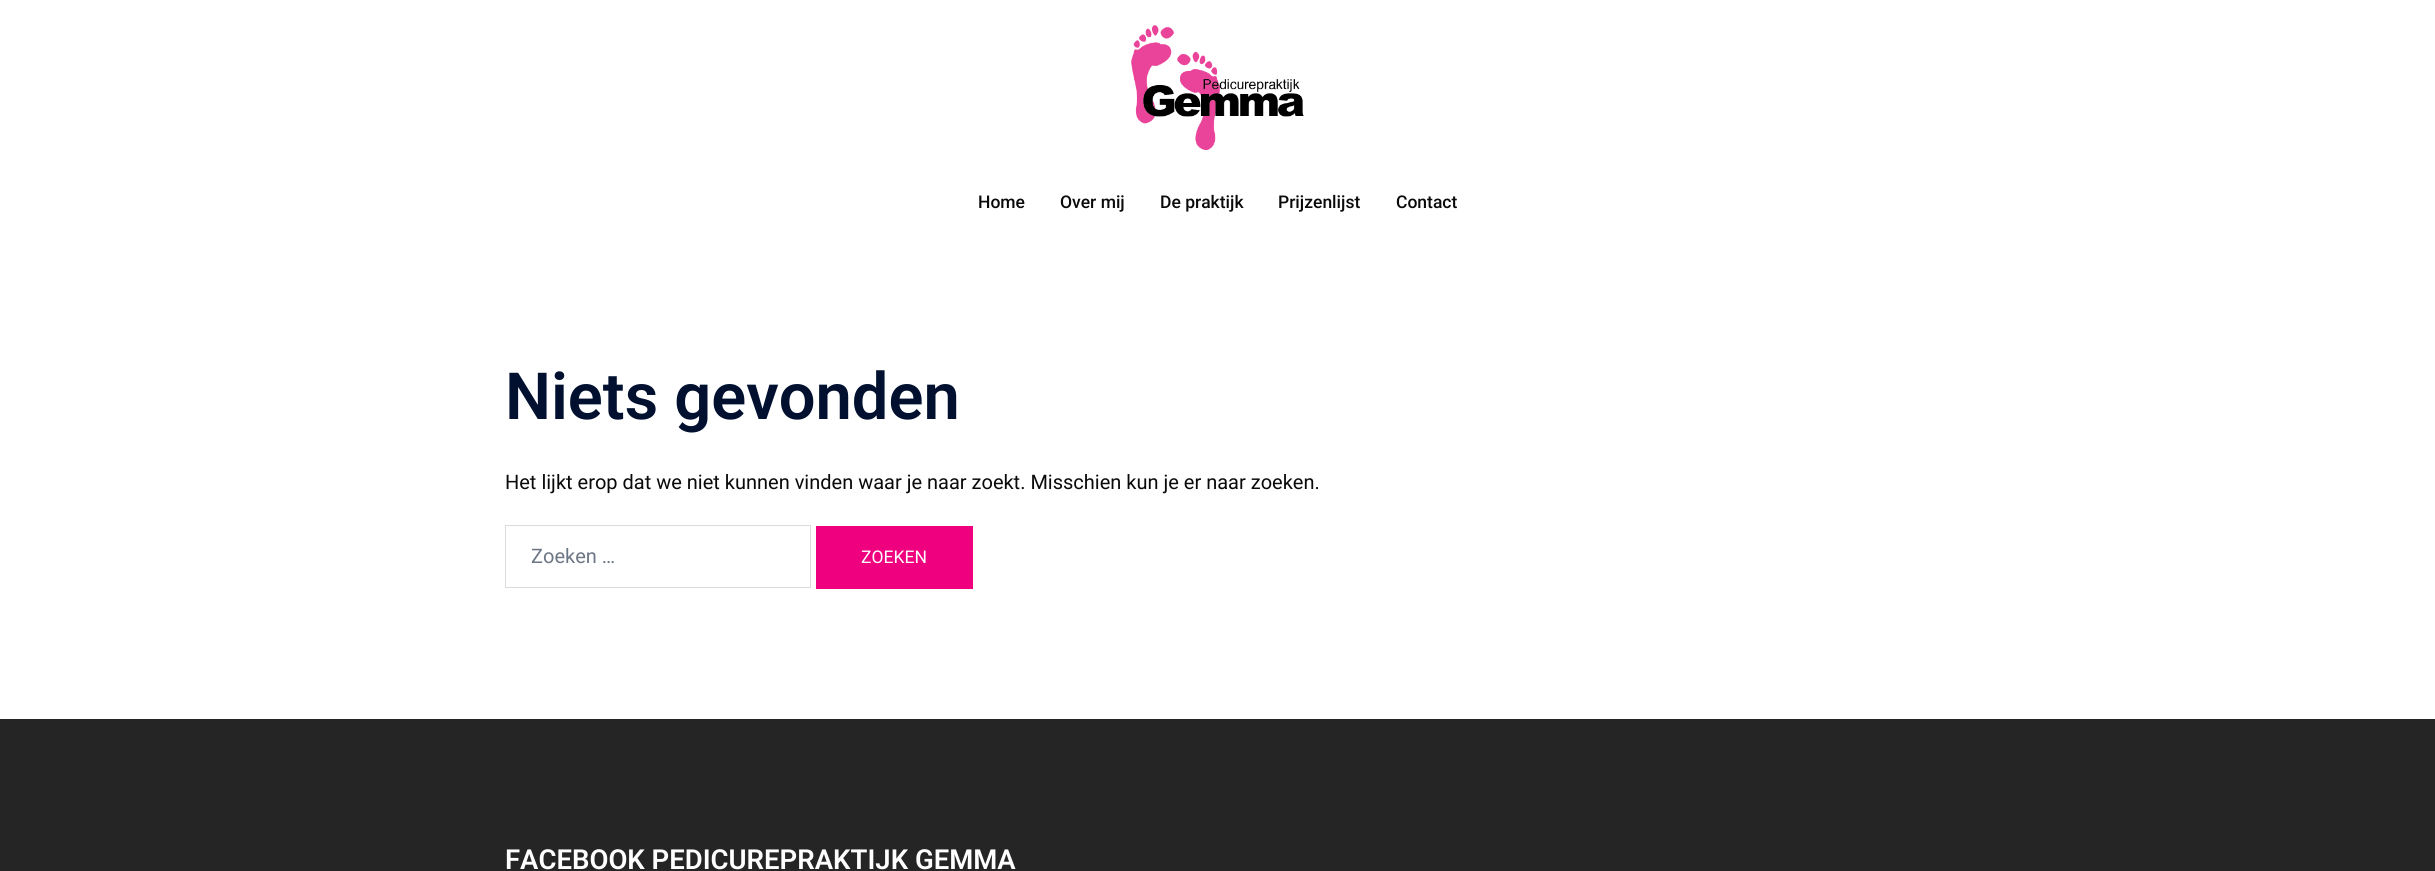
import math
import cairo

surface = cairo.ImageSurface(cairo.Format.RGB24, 2435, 871)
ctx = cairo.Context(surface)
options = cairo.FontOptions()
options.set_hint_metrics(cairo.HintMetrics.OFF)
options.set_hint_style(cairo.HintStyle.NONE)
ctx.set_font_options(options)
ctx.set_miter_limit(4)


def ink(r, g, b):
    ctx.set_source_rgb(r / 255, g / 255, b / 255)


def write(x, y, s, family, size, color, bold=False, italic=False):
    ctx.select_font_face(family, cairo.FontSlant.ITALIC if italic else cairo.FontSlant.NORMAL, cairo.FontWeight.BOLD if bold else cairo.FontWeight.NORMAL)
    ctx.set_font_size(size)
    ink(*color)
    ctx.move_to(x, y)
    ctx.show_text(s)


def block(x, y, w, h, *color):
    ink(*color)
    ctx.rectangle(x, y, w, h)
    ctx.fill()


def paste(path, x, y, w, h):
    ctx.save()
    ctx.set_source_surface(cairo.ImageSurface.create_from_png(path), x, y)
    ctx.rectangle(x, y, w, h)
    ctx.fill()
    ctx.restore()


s1 = dict(family="Roboto Medium", size=17.5, color=(10, 10, 10))
s2 = dict(family="Roboto SemiBold", size=65, color=(0, 16, 46))
s3 = dict(family="Roboto", size=20, color=(10, 10, 10))
s4 = dict(family="Roboto", size=20, color=(109, 118, 133))
s5 = dict(family="Roboto", size=17.5, color=(255, 255, 255))
s6 = dict(family="Roboto SemiBold", size=27.5, color=(255, 255, 255))

ink(255, 255, 255)
ctx.paint()
paste("pic1.png", 1131, 25, 173, 125)
write(978, 208, "Home", **s1)
write(1060, 208, "Over mij", **s1)
write(1160, 208, "De praktijk", **s1)
write(1278, 208, "Prijzenlijst", **s1)
write(1396, 208, "Contact", **s1)
write(505, 419, "Niets gevonden", **s2)
write(505, 489, "Het lijkt erop dat we niet kunnen vinden waar je naar zoekt. Misschien kun je er naar zoeken.", **s3)
ctx.rectangle(505.5, 525.5, 305, 62)
ink(219, 219, 219)
ctx.set_line_width(1)
ctx.stroke()
write(531, 563, "Zoeken …", **s4)
block(816, 526, 157, 63, 239, 0, 127)
write(861, 563, "ZOEKEN", **s5)
block(0, 719, 2435, 152, 37, 37, 37)
write(505, 869, "FACEBOOK PEDICUREPRAKTIJK GEMMA", **s6)
surface.write_to_png("screenshot.png")
